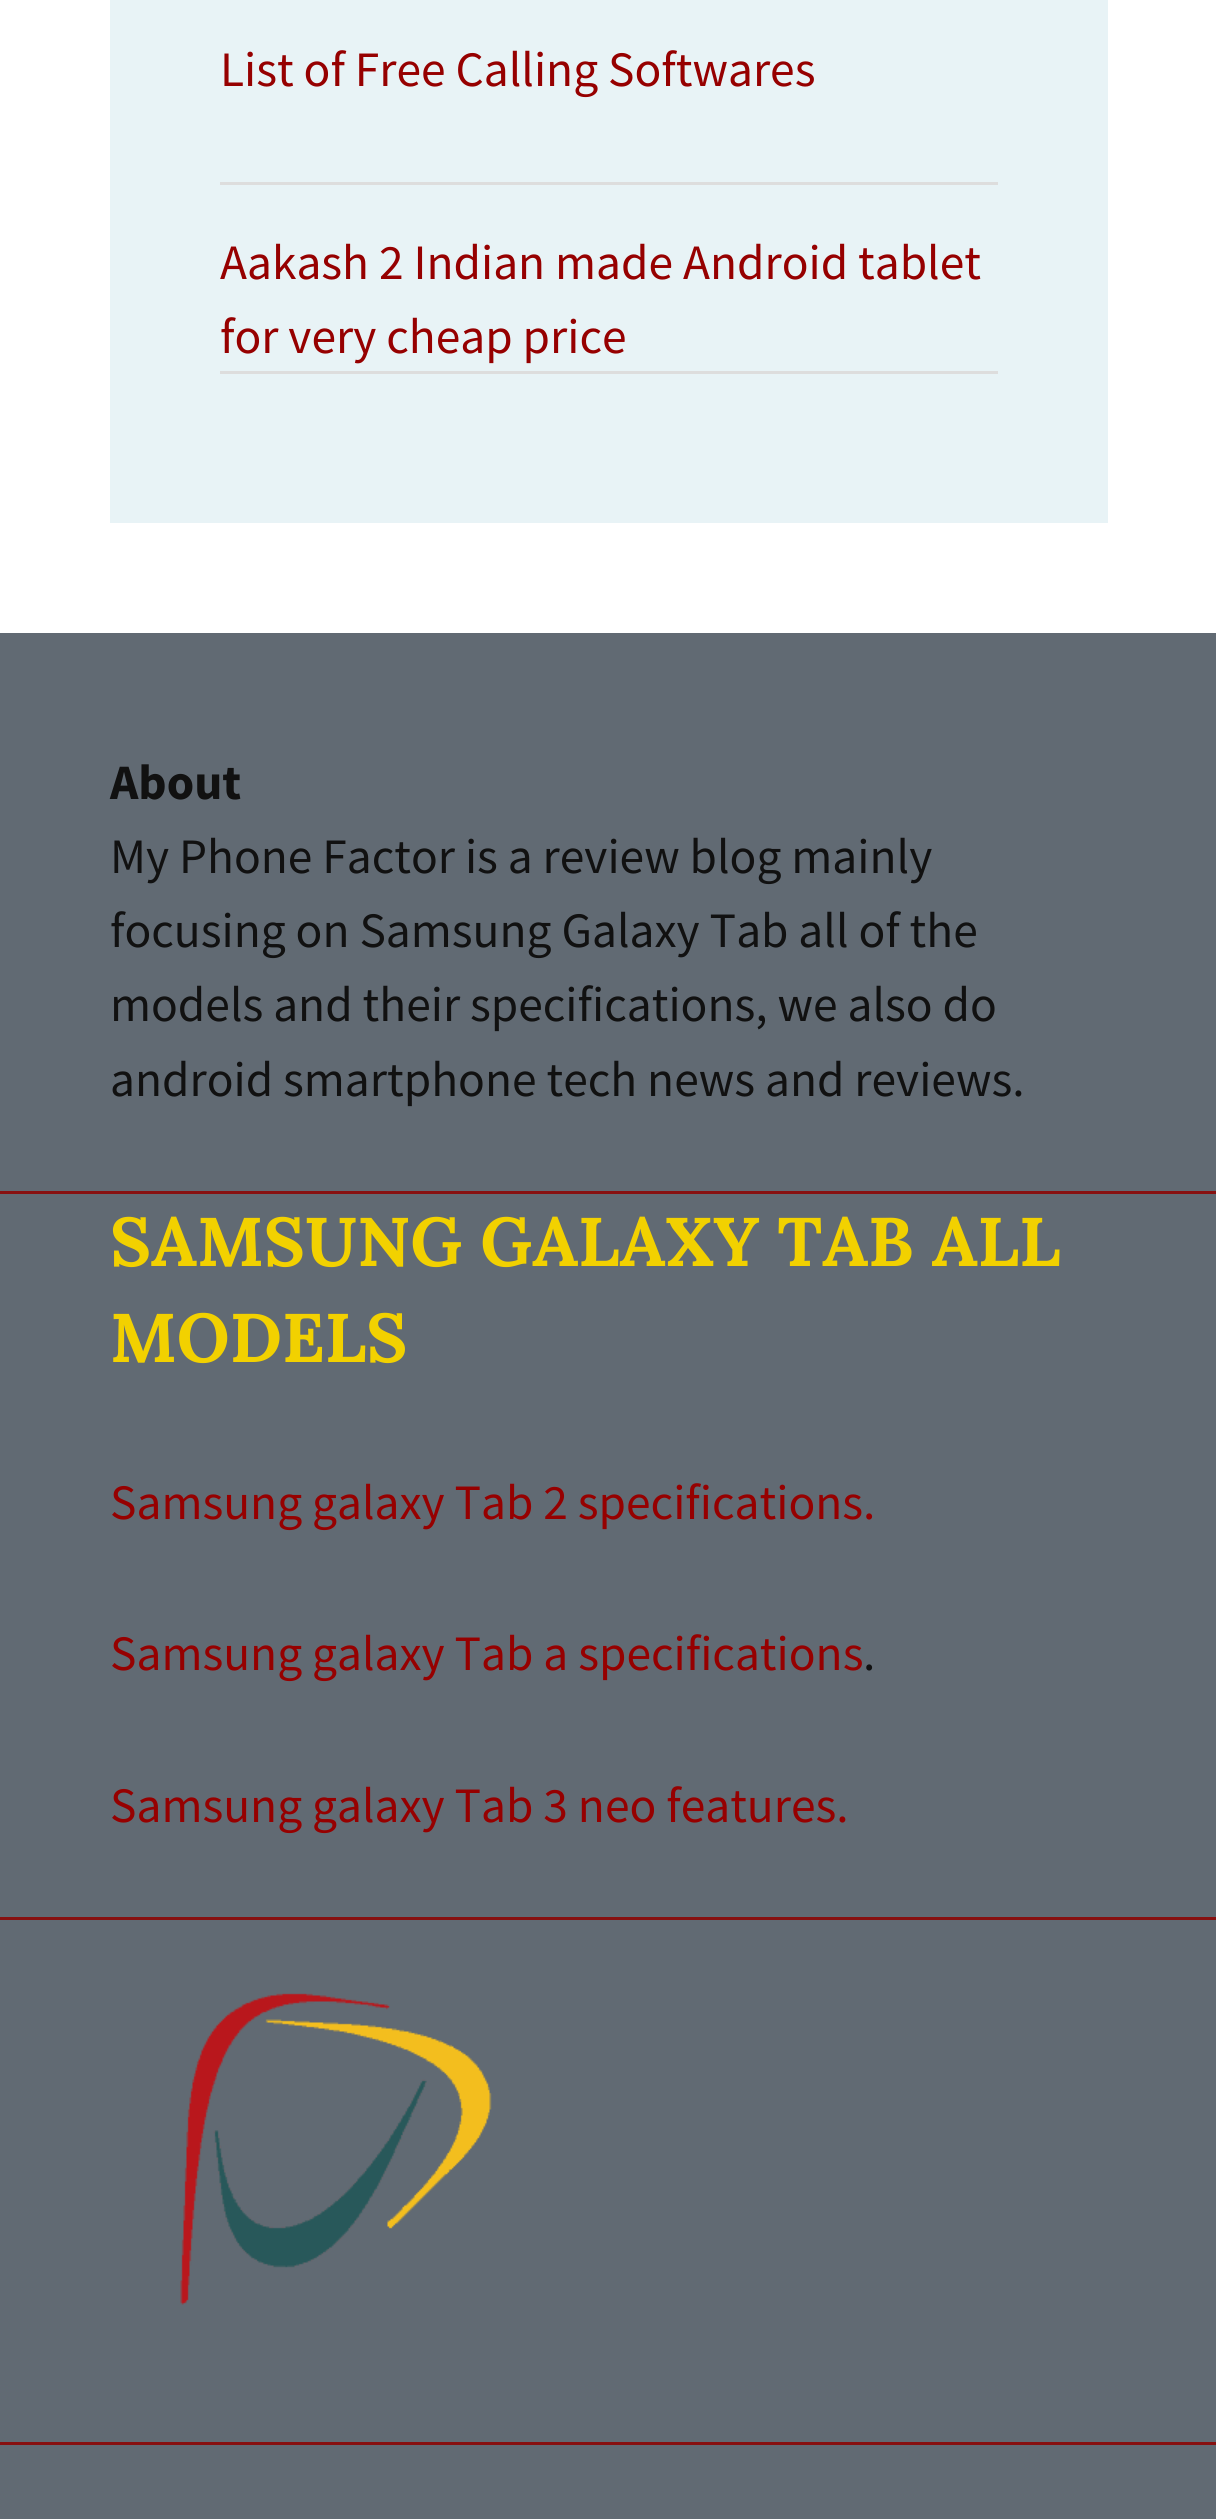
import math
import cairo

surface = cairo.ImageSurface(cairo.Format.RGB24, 1216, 2519)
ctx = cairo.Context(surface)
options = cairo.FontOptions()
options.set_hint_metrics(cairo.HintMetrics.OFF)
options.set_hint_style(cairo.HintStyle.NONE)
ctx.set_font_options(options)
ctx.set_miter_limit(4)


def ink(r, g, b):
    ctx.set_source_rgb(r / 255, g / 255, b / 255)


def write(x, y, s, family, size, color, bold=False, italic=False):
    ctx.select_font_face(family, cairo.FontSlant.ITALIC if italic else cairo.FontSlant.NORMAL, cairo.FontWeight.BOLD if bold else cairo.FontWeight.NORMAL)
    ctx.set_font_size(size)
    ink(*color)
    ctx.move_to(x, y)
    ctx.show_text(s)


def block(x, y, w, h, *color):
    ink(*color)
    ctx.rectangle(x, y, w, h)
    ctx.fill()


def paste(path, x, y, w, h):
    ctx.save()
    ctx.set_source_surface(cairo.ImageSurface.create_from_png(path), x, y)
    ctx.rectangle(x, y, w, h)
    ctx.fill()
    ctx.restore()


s1 = dict(family="Source Sans Pro", size=49.5, color=(150, 0, 0))
s2 = dict(family="Source Sans Pro", size=49.5, color=(17, 17, 17), bold=True)
s3 = dict(family="Source Sans Pro", size=49.5, color=(17, 17, 17))
s4 = dict(family="Lora", size=68.75, color=(242, 209, 0), bold=True)

ink(97, 106, 115)
ctx.paint()
block(0, 0, 1216, 633, 255, 255, 255)
block(110, 0, 998, 523, 232, 243, 246)
block(220, 182, 778, 3, 221, 221, 221)
write(220, 86, "List of Free Calling Softwares", **s1)
block(220, 371, 778, 3, 221, 221, 221)
write(220, 279, "Aakash 2 Indian made Android tablet", **s1)
write(220, 353, "for very cheap price", **s1)
block(0, 2442, 1216, 3, 135, 16, 16)
block(0, 1191, 1216, 3, 135, 16, 16)
write(110, 799, "About", **s2)
write(110, 873, "My Phone Factor is a review blog mainly", **s3)
write(110, 947, "focusing on Samsung Galaxy Tab all of the", **s3)
write(110, 1021, "models and their specifications, we also do", **s3)
write(110, 1096, "android smartphone tech news and reviews.", **s3)
block(0, 1917, 1216, 3, 135, 16, 16)
write(110, 1266, "SAMSUNG GALAXY TAB ALL", **s4)
write(110, 1362, "MODELS", **s4)
write(110, 1519, "Samsung galaxy Tab 2 specifications.", **s1)
write(110, 1670, "Samsung galaxy Tab a specifications", **s1)
write(863, 1670, ".", **s3)
write(110, 1822, "Samsung galaxy Tab 3 neo features.", **s1)
paste("pic1.png", 180, 1993, 312, 312)
surface.write_to_png("screenshot.png")
